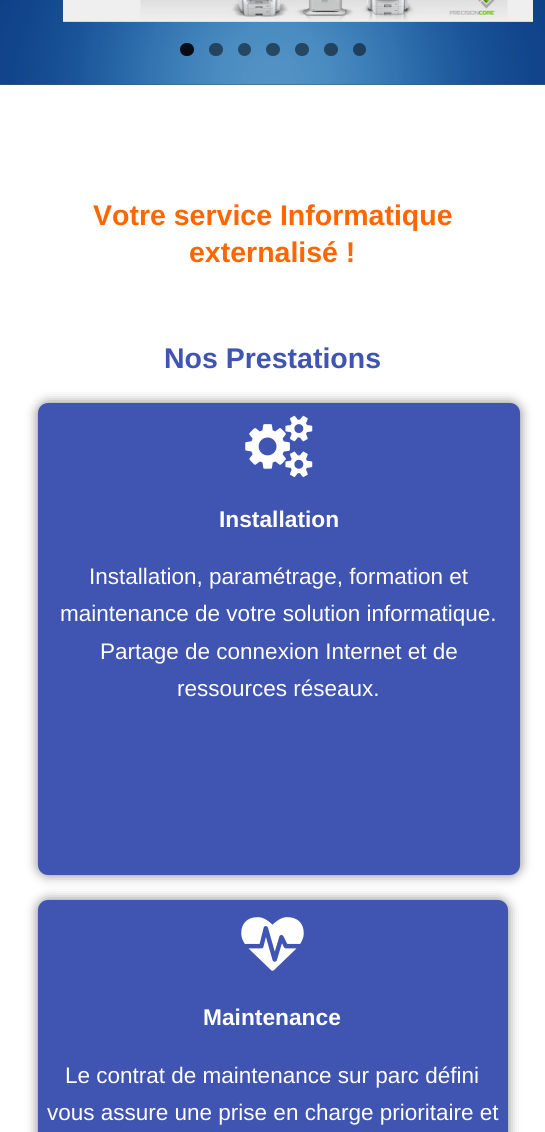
import math
import cairo

surface = cairo.ImageSurface(cairo.Format.RGB24, 545, 1132)
ctx = cairo.Context(surface)
options = cairo.FontOptions()
options.set_hint_metrics(cairo.HintMetrics.OFF)
options.set_hint_style(cairo.HintStyle.NONE)
ctx.set_font_options(options)
ctx.set_miter_limit(4)


def ink(r, g, b):
    ctx.set_source_rgb(r / 255, g / 255, b / 255)


def write(x, y, s, family, size, color, bold=False, italic=False):
    ctx.select_font_face(family, cairo.FontSlant.ITALIC if italic else cairo.FontSlant.NORMAL, cairo.FontWeight.BOLD if bold else cairo.FontWeight.NORMAL)
    ctx.set_font_size(size)
    ink(*color)
    ctx.move_to(x, y)
    ctx.show_text(s)


def block(x, y, w, h, *color):
    ink(*color)
    ctx.rectangle(x, y, w, h)
    ctx.fill()


def round_path(x, y, w, h, r):
    ctx.new_sub_path()
    for i, (u, v) in enumerate([(x + w - r, y + h - r), (x + r, y + h - r), (x + r, y + r), (x + w - r, y + r)]):
        ctx.arc(u, v, r, i * math.pi / 2, (i + 1) * math.pi / 2)
    ctx.close_path()


def blur_box(x, y, w, h, r, blur, alpha):
    ctx.push_group_with_content(cairo.Content.ALPHA)
    ctx.set_operator(cairo.Operator.SOURCE)
    for i in range(15, -16, -2):
        e = blur * i / 6
        if min(w, h) + 2 * e > 0:
            ctx.set_source_rgba(0, 0, 0, alpha * math.erfc((i - 1) / 8.5) / 2)
            round_path(x - e, y - e, w + 2 * e, h + 2 * e, max(0, min(r + e + blur * .6, min(w, h) / 2 + e)))
            ctx.fill()
    ctx.mask(ctx.pop_group())


def paste(path, x, y, w, h):
    ctx.save()
    ctx.set_source_surface(cairo.ImageSurface.create_from_png(path), x, y)
    ctx.rectangle(x, y, w, h)
    ctx.fill()
    ctx.restore()


s1 = dict(family="Liberation Sans", size=28.5, color=(255, 102, 0), bold=True)
s2 = dict(family="Liberation Sans", size=28.5, color=(64, 84, 178), bold=True)
s3 = dict(family="Liberation Sans", size=22.75, color=(255, 255, 255), bold=True)
s4 = dict(family="Liberation Sans", size=22.5, color=(255, 255, 255))

ink(255, 255, 255)
ctx.paint()
block(0, 84, 545, 1, 84, 89, 95)
paste("pic1.png", 0, 0, 545, 85)
paste("pic2.png", 63, 0, 470, 22)
ctx.set_source_rgba(0, 0, 0, 0.9)
round_path(180, 43, 14, 13, 6.5)
ctx.fill()
ctx.set_source_rgba(0, 0, 0, 0.5)
round_path(209, 43, 14, 13, 6.5)
ctx.fill()
ink(38, 71, 97)
ctx.arc(244.5, 49.5, 6.5, 0, 2 * math.pi)
ctx.fill()
ctx.set_source_rgba(0, 0, 0, 0.5)
round_path(266, 43, 14, 13, 6.5)
ctx.fill()
ink(38, 71, 97)
round_path(295, 43, 14, 13, 6.5)
ctx.fill()
ctx.set_source_rgba(0, 0, 0, 0.5)
round_path(324, 43, 14, 13, 6.5)
ctx.fill()
ctx.arc(359.5, 49.5, 6.5, 0, 2 * math.pi)
ctx.fill()
write(93, 225, "Votre service Informatique", **s1)
write(189, 262, "externalisé !", **s1)
write(164, 368, "Nos Prestations", **s2)
ink(0, 0, 0)
blur_box(38, 403, 482, 472, 10, 6, 0.5)
ink(64, 84, 178)
round_path(38, 403, 482, 472, 10)
ctx.fill()
paste("pic3.png", 245, 415, 68, 63)
write(219, 527, "Installation", **s3)
write(89, 584, "Installation, paramétrage, formation et", **s4)
write(60, 621, "maintenance de votre solution informatique.", **s4)
write(100, 659, "Partage de connexion Internet et de", **s4)
write(177, 696, "ressources réseaux.", **s4)
ink(0, 0, 0)
blur_box(38, 900, 470, 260, 10, 6, 0.5)
ink(64, 84, 178)
round_path(38, 900, 470, 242, 10)
ctx.fill()
paste("pic4.png", 241, 917, 63, 54)
write(203, 1025, "Maintenance", **s3)
write(65, 1083, "Le contrat de maintenance sur parc défini", **s4)
write(47, 1120, "vous assure une prise en charge prioritaire et", **s4)
surface.write_to_png("screenshot.png")
